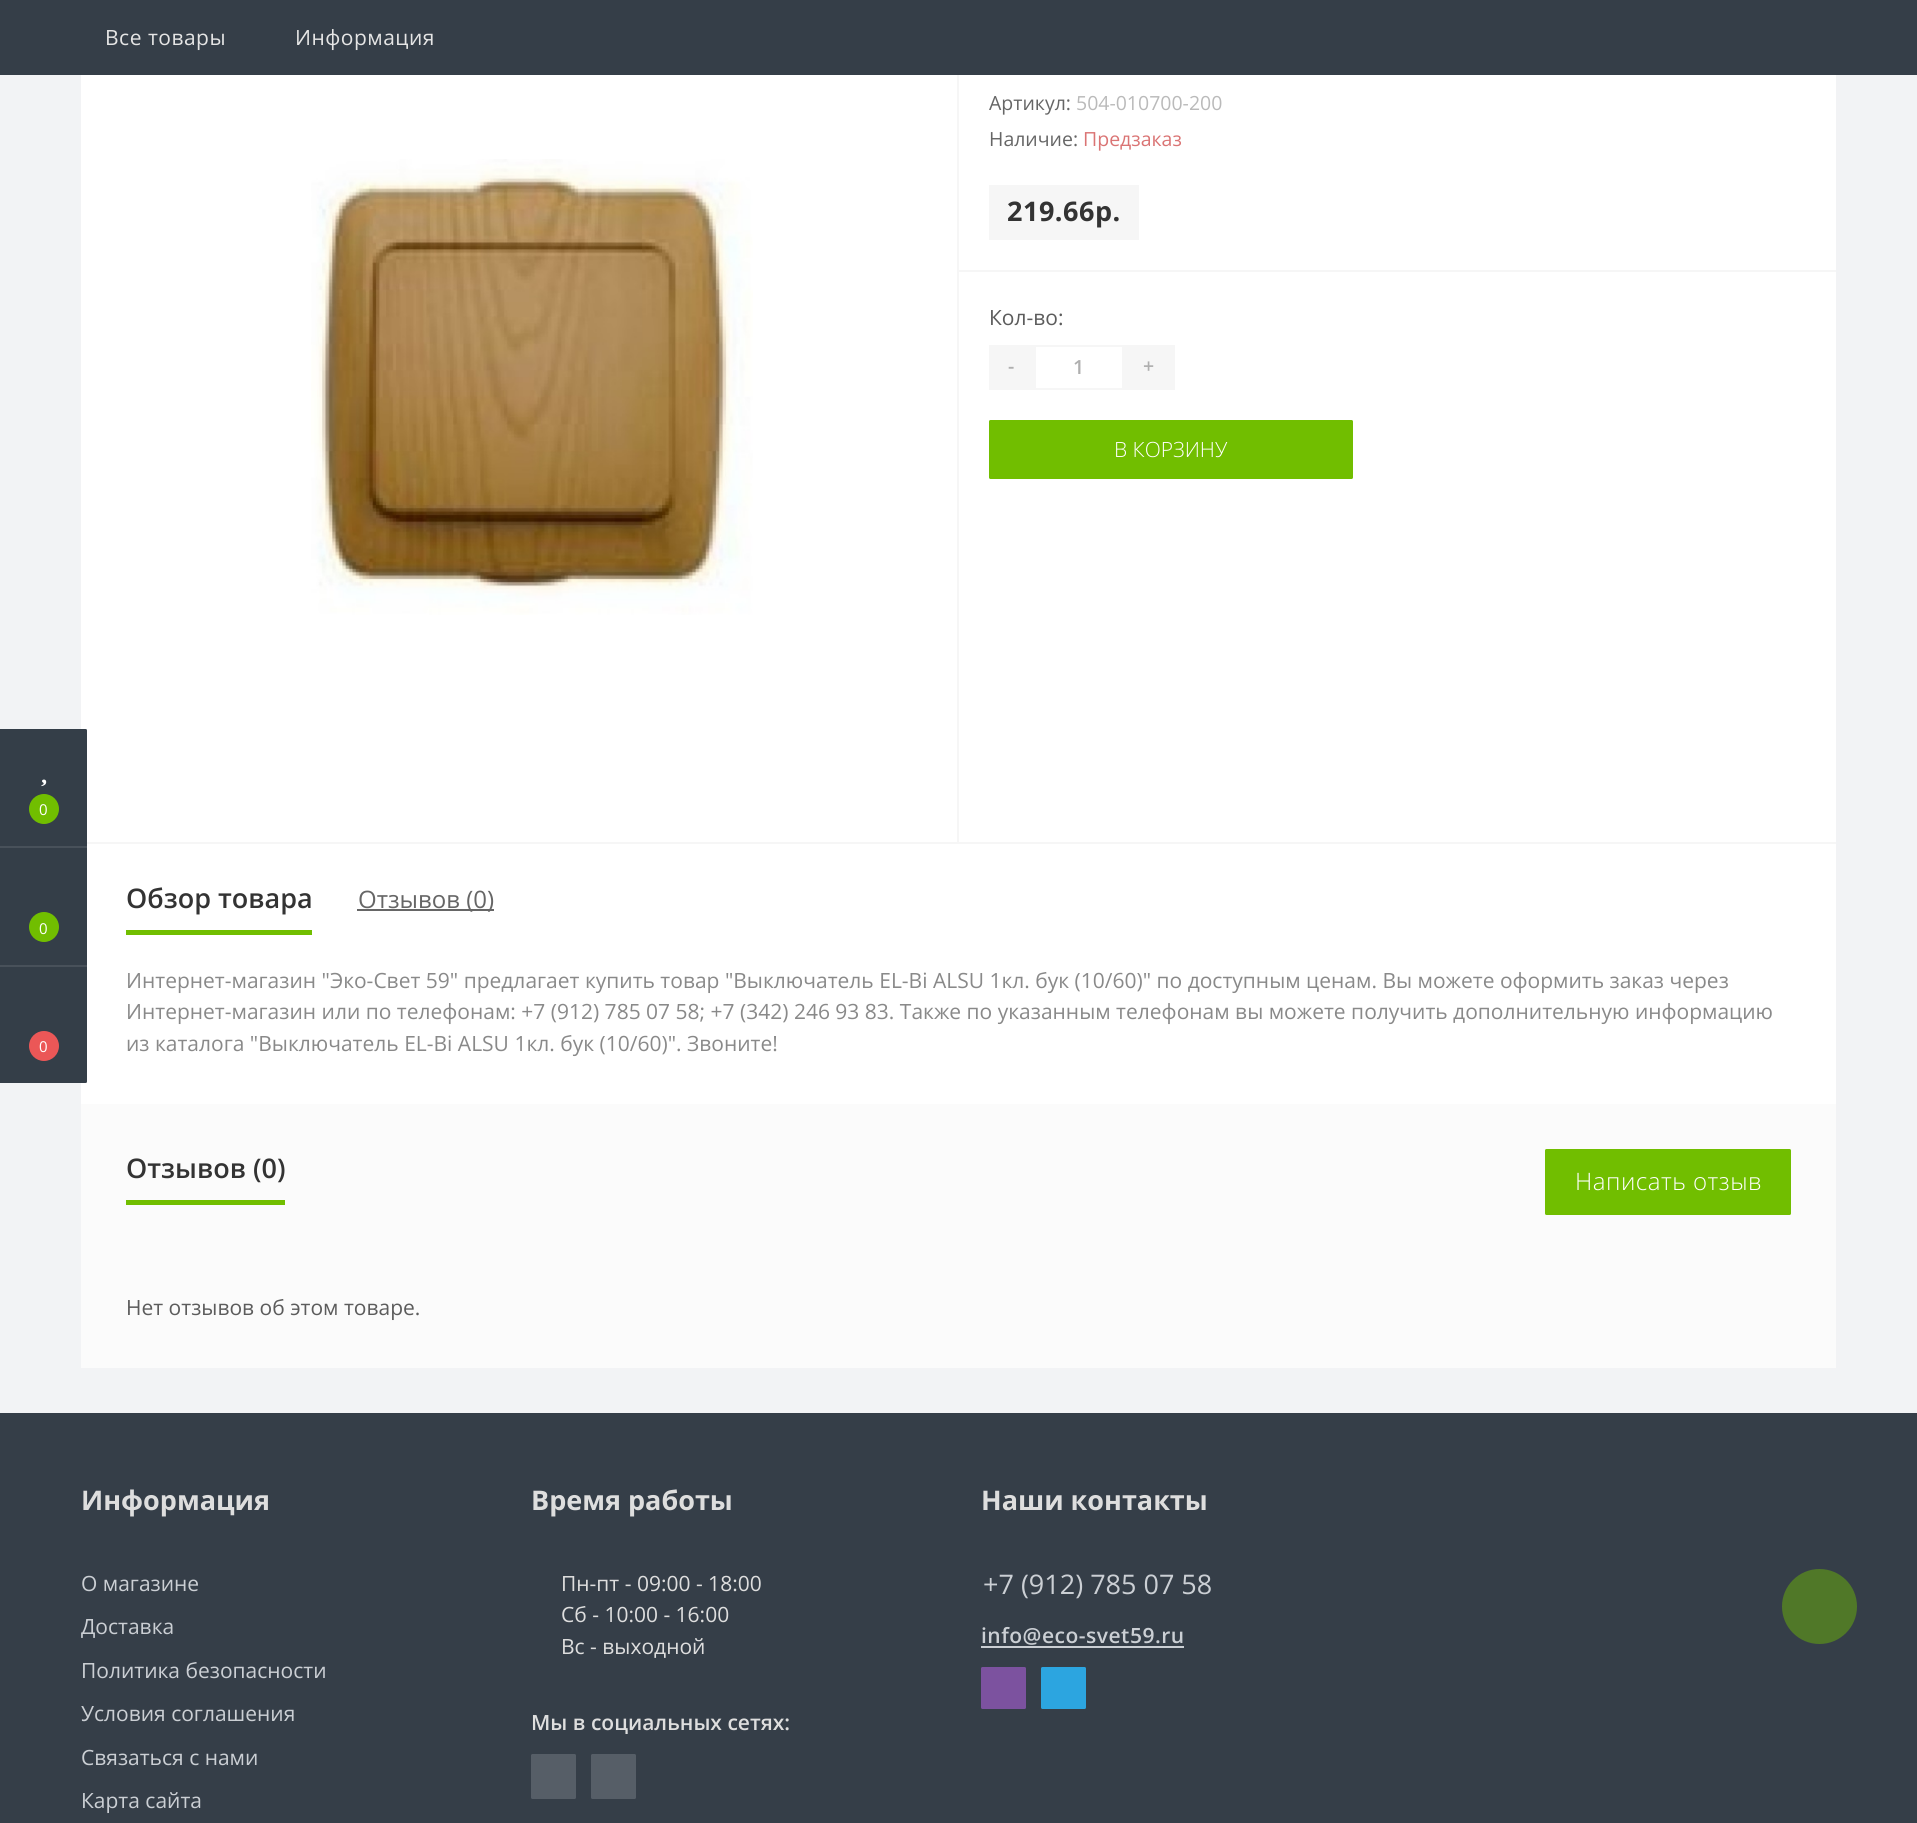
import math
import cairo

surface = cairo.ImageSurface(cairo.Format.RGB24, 1917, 1823)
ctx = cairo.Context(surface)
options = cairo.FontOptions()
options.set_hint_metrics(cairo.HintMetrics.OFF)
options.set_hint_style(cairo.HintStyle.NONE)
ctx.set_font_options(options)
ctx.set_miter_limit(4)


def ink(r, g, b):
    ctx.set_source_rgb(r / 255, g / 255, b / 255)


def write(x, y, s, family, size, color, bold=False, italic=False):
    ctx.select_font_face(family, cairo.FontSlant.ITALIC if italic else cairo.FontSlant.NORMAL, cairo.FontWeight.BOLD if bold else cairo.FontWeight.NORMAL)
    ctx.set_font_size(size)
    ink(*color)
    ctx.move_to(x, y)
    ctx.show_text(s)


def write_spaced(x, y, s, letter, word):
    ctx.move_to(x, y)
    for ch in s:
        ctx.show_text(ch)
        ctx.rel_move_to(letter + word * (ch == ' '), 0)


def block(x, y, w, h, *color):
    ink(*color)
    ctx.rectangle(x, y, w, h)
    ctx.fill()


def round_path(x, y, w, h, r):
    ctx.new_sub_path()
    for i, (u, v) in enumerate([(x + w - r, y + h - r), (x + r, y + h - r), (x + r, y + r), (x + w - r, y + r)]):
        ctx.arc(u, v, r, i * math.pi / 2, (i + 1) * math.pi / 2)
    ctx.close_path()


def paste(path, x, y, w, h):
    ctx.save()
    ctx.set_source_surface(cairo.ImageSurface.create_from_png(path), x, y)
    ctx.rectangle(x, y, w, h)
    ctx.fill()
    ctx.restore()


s1 = dict(family="Open Sans", size=15, color=(255, 255, 255))
s2 = dict(family="Open Sans", size=19.5, color=(102, 102, 102))
s3 = dict(family="Open Sans", size=19.5, color=(186, 186, 186))
s4 = dict(family="Open Sans", size=19.5, color=(218, 116, 116))
s5 = dict(family="Open Sans", size=21, color=(92, 92, 92))
s6 = dict(family="Open Sans SemiBold", size=19.5, color=(175, 175, 175))
s7 = dict(family="Open Sans Light", size=21, color=(255, 255, 255))
s8 = dict(family="Open Sans SemiBold", size=27, color=(51, 51, 51))
s9 = dict(family="Open Sans", size=24, color=(102, 102, 102))
s10 = dict(family="Open Sans", size=21, color=(137, 137, 137))
s11 = dict(family="Open Sans", size=27, color=(222, 222, 222), bold=True)
s12 = dict(family="Open Sans", size=21, color=(203, 207, 212))
s13 = dict(family="Open Sans", size=21, color=(222, 222, 222))
s14 = dict(family="Open Sans SemiBold", size=21, color=(222, 222, 222))
s15 = dict(family="Open Sans", size=27, color=(203, 207, 212))

ink(242, 243, 245)
ctx.paint()
block(0, 0, 1917, 75, 53, 62, 72)
ctx.select_font_face("Open Sans")
ctx.set_font_size(21)
ink(229, 229, 229)
write_spaced(105, 45, "Все товары", 0.5, 0)
write_spaced(295, 45, "Информация", 0.5, 0)
block(81, 75, 1755, 1029, 255, 255, 255)
block(81, 842, 1755, 2, 246, 246, 246)
ink(52, 62, 72)
ctx.new_path()
ctx.move_to(0, 729)
ctx.line_to(85.5, 729)
ctx.curve_to(86.5, 729, 87, 729.5, 87, 730.5)
ctx.line_to(87, 1081.5)
ctx.curve_to(87, 1082.5, 86.5, 1083, 85.5, 1083)
ctx.line_to(0, 1083)
ctx.close_path()
ctx.fill()
paste("pic1.png", 41, 779, 6, 8)
ink(113, 190, 0)
ctx.arc(44, 809, 15, 0, 2 * math.pi)
ctx.fill()
write(39, 815, "0", **s1)
block(0, 846, 87, 2, 72, 81, 90)
ink(113, 190, 0)
ctx.new_path()
ctx.arc(44, 927, 15, 0, 2 * math.pi)
ctx.fill()
write(39, 934, "0", **s1)
block(0, 965, 87, 2, 72, 81, 90)
ink(235, 87, 87)
ctx.new_path()
ctx.arc(44, 1046, 15, 0, 2 * math.pi)
ctx.fill()
write(39, 1052, "0", **s1)
block(957, 75, 2, 767, 246, 246, 246)
paste("pic2.png", 311, 159, 442, 456)
block(959, 270, 877, 2, 246, 246, 246)
write(989, 110, "Артикул:", **s2)
write(1076, 110, "504-010700-200", **s3)
write(989, 146, "Наличие:", **s2)
write(1083, 146, "Предзаказ", **s4)
block(989, 185, 150, 55, 246, 246, 246)
ctx.select_font_face("Open Sans", cairo.FontSlant.NORMAL, cairo.FontWeight.BOLD)
ctx.set_font_size(27)
ink(51, 51, 51)
write_spaced(1007, 221, "219.66р.", 0.5, 0)
write(989, 325, "Кол-во:", **s5)
block(989, 345, 45, 45, 246, 246, 246)
write(1008, 373, "-", **s6)
ctx.rectangle(1035, 346, 88, 43)
ink(246, 246, 246)
ctx.stroke()
write(1073, 374, "1", **s6)
block(1124, 345, 51, 45, 246, 246, 246)
write(1143, 373, "+", **s6)
ink(113, 190, 0)
round_path(989, 420, 364, 59, 1.5)
ctx.fill()
write(1114, 457, "В КОРЗИНУ", **s7)
write(126, 908, "Обзор товара", **s8)
block(126, 930, 186, 5, 113, 190, 0)
block(357, 909, 137, 2, 102, 102, 102)
write(358, 908, "Отзывов (0)", **s9)
write(126, 988, "Интернет-магазин \"Эко-Свет 59\" предлагает купить товар \"Выключатель EL-Bi ALSU 1кл. бук (10/60)\" по доступным ценам. Вы можете оформить заказ через", **s10)
write(126, 1019, "Интернет-магазин или по телефонам: +7 (912) 785 07 58; +7 (342) 246 93 83. Также по указанным телефонам вы можете получить дополнительную информацию", **s10)
write(126, 1051, "из каталога \"Выключатель EL-Bi ALSU 1кл. бук (10/60)\". Звоните!", **s10)
block(81, 1104, 1755, 264, 251, 251, 251)
write(126, 1178, "Отзывов (0)", **s8)
block(126, 1200, 159, 5, 113, 190, 0)
round_path(1545, 1149, 246, 66, 1.5)
ctx.fill()
ctx.select_font_face("Open Sans Light")
ctx.set_font_size(24)
ink(255, 255, 255)
write_spaced(1575, 1190, "Написать отзыв", 0.5, 0)
write(126, 1315, "Нет отзывов об этом товаре.", **s5)
block(0, 1413, 1917, 410, 53, 62, 72)
write(81, 1510, "Информация", **s11)
write(81, 1591, "О магазине", **s12)
write(81, 1634, "Доставка", **s12)
write(81, 1678, "Политика безопасности", **s12)
write(81, 1721, "Условия соглашения", **s12)
write(81, 1765, "Связаться с нами", **s12)
write(81, 1808, "Карта сайта", **s12)
write(531, 1510, "Время работы", **s11)
write(561, 1591, "Пн-пт - 09:00 - 18:00", **s13)
write(561, 1622, "Сб - 10:00 - 16:00", **s13)
write(561, 1654, "Вс - выходной", **s13)
write(531, 1730, "Мы в социальных сетях:", **s14)
ink(86, 94, 103)
round_path(531, 1754, 45, 45, 1.5)
ctx.fill()
round_path(591, 1754, 45, 45, 1.5)
ctx.fill()
write(981, 1510, "Наши контакты", **s11)
write(983, 1594, "+7 (912) 785 07 58", **s15)
ctx.select_font_face("Open Sans SemiBold")
ctx.set_font_size(21)
write_spaced(981, 1643, "info@eco-svet59.ru", 0.5, 0)
block(981, 1646, 203, 2, 203, 207, 212)
ink(124, 82, 159)
round_path(981, 1667, 45, 42, 1.5)
ctx.fill()
ink(44, 165, 224)
round_path(1041, 1667, 45, 42, 1.5)
ctx.fill()
ink(80, 120, 40)
ctx.arc(1819.5, 1606.5, 37.5, 0, 2 * math.pi)
ctx.fill()
surface.write_to_png("screenshot.png")
